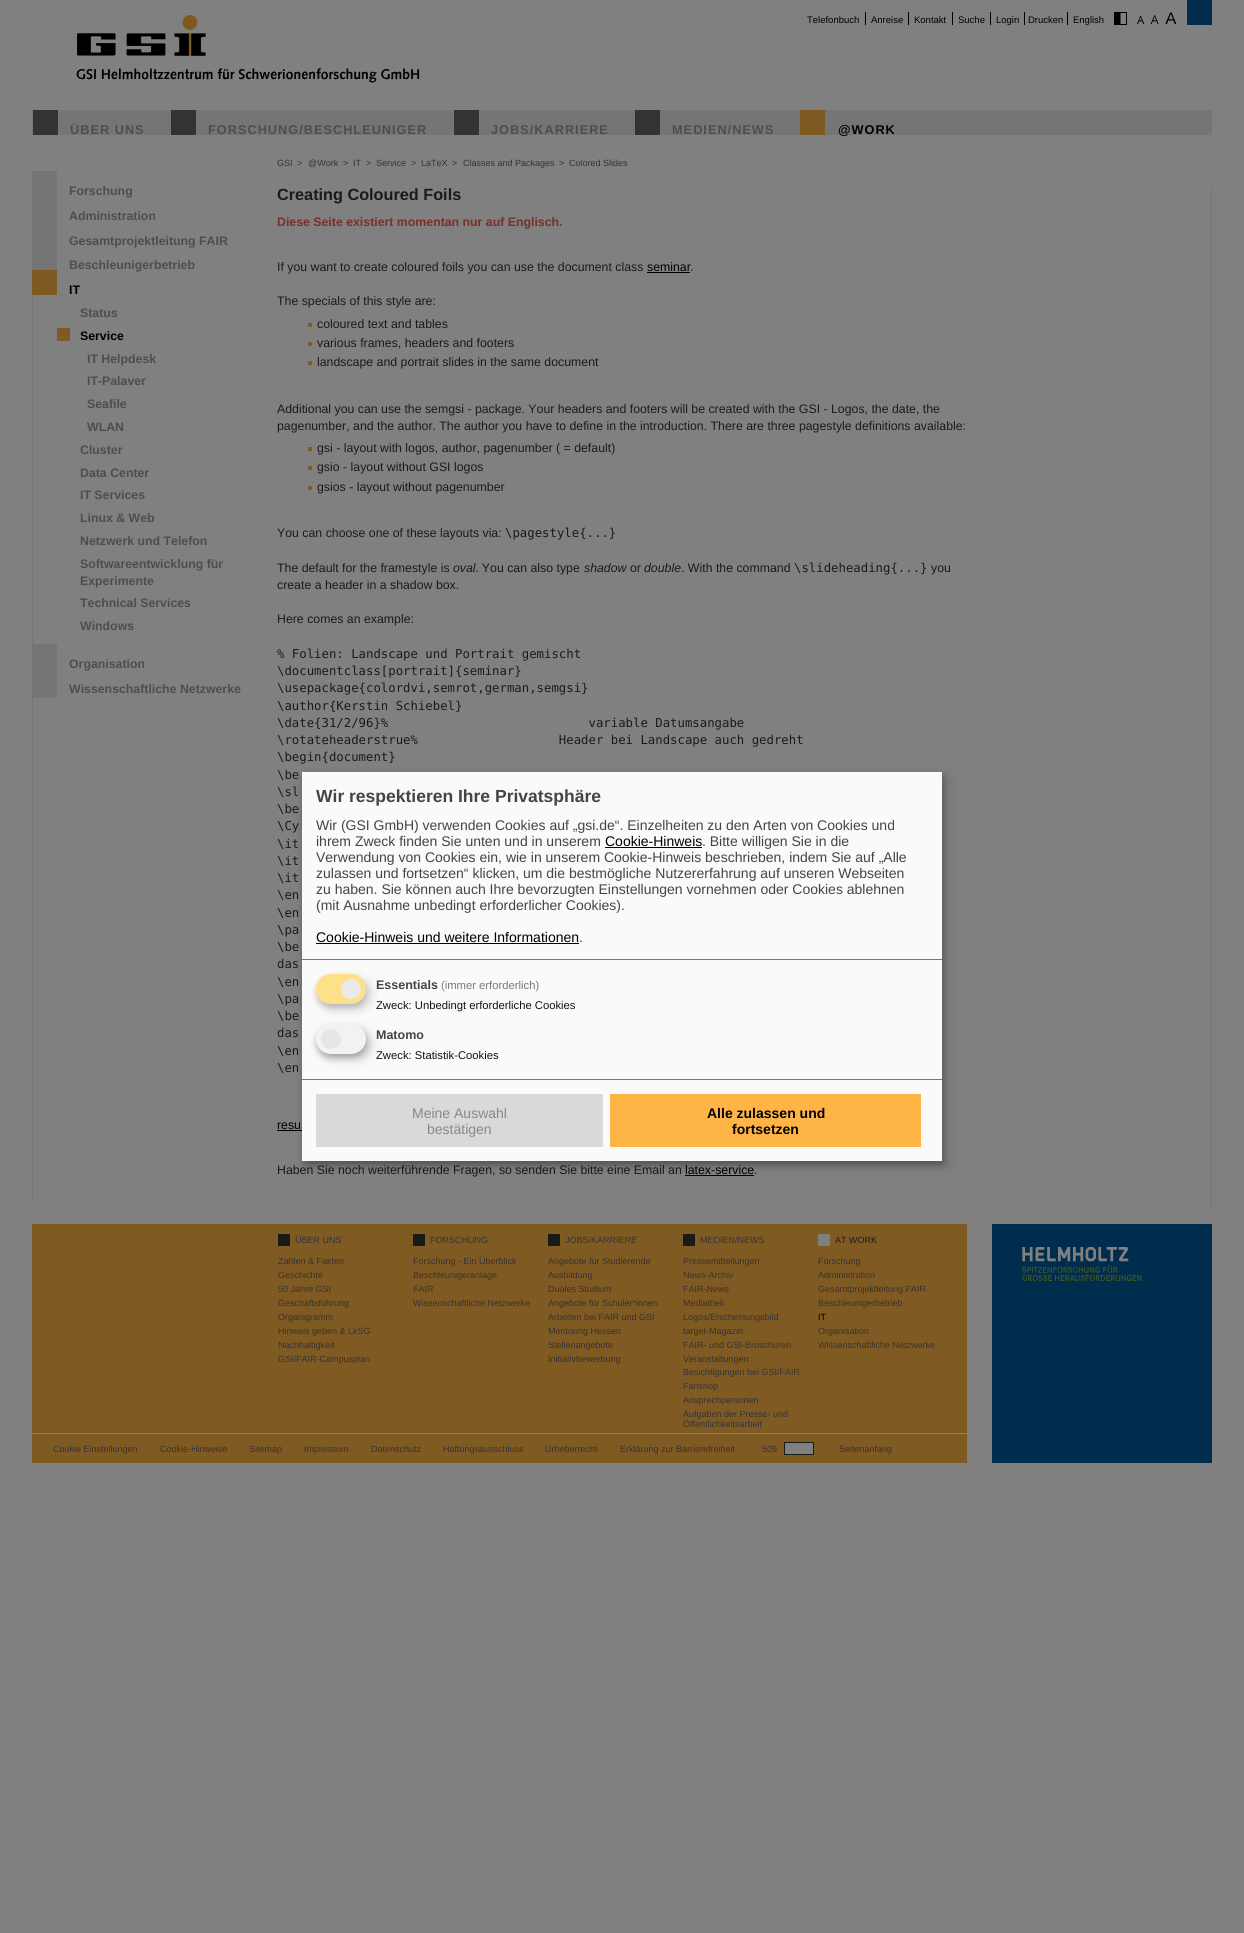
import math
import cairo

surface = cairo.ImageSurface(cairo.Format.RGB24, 1244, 1933)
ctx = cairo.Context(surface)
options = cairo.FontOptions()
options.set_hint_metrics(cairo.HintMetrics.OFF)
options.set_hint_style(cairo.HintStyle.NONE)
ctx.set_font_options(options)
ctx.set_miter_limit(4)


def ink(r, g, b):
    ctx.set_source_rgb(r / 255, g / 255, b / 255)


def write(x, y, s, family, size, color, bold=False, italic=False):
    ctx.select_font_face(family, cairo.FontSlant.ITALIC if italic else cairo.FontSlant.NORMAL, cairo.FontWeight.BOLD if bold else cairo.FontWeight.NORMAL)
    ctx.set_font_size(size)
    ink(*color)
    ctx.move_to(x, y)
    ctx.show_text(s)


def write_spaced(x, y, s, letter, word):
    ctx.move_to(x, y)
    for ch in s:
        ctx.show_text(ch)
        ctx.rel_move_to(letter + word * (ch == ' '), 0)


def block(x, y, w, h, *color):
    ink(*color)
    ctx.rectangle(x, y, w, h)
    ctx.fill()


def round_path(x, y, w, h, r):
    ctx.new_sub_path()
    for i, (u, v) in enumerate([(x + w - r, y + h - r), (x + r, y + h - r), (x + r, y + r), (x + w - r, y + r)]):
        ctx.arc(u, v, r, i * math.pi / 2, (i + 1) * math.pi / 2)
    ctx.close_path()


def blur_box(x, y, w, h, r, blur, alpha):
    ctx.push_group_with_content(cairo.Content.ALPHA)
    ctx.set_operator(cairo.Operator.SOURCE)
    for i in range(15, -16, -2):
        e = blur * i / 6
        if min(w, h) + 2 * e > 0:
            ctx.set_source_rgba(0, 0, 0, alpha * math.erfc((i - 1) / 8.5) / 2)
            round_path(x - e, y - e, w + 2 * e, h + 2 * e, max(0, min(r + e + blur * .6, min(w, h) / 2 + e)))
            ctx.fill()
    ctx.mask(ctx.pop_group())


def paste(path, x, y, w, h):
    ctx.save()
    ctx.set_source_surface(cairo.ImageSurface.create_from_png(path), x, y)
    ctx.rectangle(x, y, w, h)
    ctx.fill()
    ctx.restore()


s1 = dict(family="Liberation Sans", size=9.5, color=(0, 0, 0))
s2 = dict(family="Liberation Sans", size=9, color=(51, 51, 51))
s3 = dict(family="Liberation Sans", size=12.32, color=(77, 77, 77), bold=True)
s4 = dict(family="Liberation Sans", size=12.32, color=(0, 0, 0), bold=True)
s5 = dict(family="Liberation Sans", size=16.25, color=(26, 26, 26), bold=True)
s6 = dict(family="Liberation Sans", size=12.32, color=(121, 46, 39), bold=True)
s7 = dict(family="Liberation Sans", size=12.32, color=(26, 26, 26))
s8 = dict(family="Liberation Sans", size=12.32, color=(0, 0, 0))
s9 = dict(family="DejaVu Sans Mono", size=12.32, color=(26, 26, 26))
s10 = dict(family="Liberation Sans", size=12.32, color=(26, 26, 26), italic=True)
s11 = dict(family="Liberation Sans", size=9, color=(26, 26, 26))
s12 = dict(family="Liberation Sans", size=9, color=(0, 0, 0))
s13 = dict(family="Liberation Sans", size=17.5, color=(68, 68, 68), bold=True)
s14 = dict(family="Liberation Sans", size=14, color=(68, 68, 68))
s15 = dict(family="Liberation Sans", size=14, color=(0, 0, 0))
s16 = dict(family="Liberation Sans", size=12.5, color=(68, 68, 68), bold=True)
s17 = dict(family="Liberation Sans", size=11.25, color=(119, 119, 119))
s18 = dict(family="Liberation Sans", size=11.25, color=(17, 17, 17))
s19 = dict(family="Liberation Sans", size=14, color=(136, 136, 136))
s20 = dict(family="Liberation Sans", size=14, color=(0, 0, 0), bold=True)

ink(128, 128, 128)
ctx.paint()
paste("pic1.png", 77, 15, 129, 41)
paste("pic2.png", 76, 68, 344, 15)
block(1187, 0, 25, 25, 0, 45, 78)
write(807, 23, "Telefonbuch", **s1)
block(865, 12, 1, 13, 0, 0, 0)
write(871, 23, "Anreise", **s1)
block(908, 12, 1, 13, 0, 0, 0)
write(914, 23, "Kontakt", **s1)
block(952, 12, 1, 13, 0, 0, 0)
write(958, 23, "Suche", **s1)
block(990, 12, 1, 13, 0, 0, 0)
write(996, 23, "Login", **s1)
block(1024, 12, 1, 13, 0, 0, 0)
write(1028, 23, "Drucken", **s1)
block(1067, 12, 1, 13, 0, 0, 0)
write(1073, 23, "English", **s1)
paste("pic3.png", 1114, 12, 13, 13)
paste("pic4.png", 1137, 16, 8, 8)
paste("pic5.png", 1150, 15, 9, 9)
paste("pic6.png", 1165, 12, 12, 12)
block(32, 110, 1180, 25, 117, 117, 117)
block(33, 110, 25, 25, 51, 51, 51)
ctx.select_font_face("Liberation Sans", cairo.FontSlant.NORMAL, cairo.FontWeight.BOLD)
ctx.set_font_size(12.75)
ink(77, 77, 77)
write_spaced(70, 134, "ÜBER UNS", 1, 0)
block(171, 110, 25, 25, 51, 51, 51)
ink(77, 77, 77)
write_spaced(208, 134, "FORSCHUNG/BESCHLEUNIGER", 1, 0)
block(454, 110, 25, 25, 51, 51, 51)
ink(77, 77, 77)
write_spaced(491, 134, "JOBS/KARRIERE", 1, 0)
block(635, 110, 25, 25, 51, 51, 51)
ink(77, 77, 77)
write_spaced(672, 134, "MEDIEN/NEWS", 1, 0)
block(800, 110, 25, 25, 128, 90, 35)
ink(0, 0, 0)
write_spaced(838, 134, "@WORK", 1, 0)
block(32, 200, 1, 999, 117, 117, 117)
write(277, 166, "GSI", **s2)
write(297, 166, ">", **s2)
write(308, 166, "@Work", **s2)
write(343, 166, ">", **s2)
write(353, 166, "IT", **s2)
write(366, 166, ">", **s2)
write(376, 166, "Service", **s2)
write(411, 166, ">", **s2)
write(421, 166, "LaTeX", **s2)
write(452, 166, ">", **s2)
write(463, 166, "Classes and Packages", **s2)
write(559, 166, ">", **s2)
write(569, 166, "Colored Slides", **s2)
block(32, 171, 25, 29, 117, 117, 117)
write(69, 195, "Forschung", **s3)
block(33, 200, 24, 70, 117, 117, 117)
write(69, 220, "Administration", **s3)
write(69, 245, "Gesamtprojektleitung FAIR", **s3)
write(69, 269, "Beschleunigerbetrieb", **s3)
block(32, 270, 25, 25, 128, 90, 35)
write(69, 294, "IT", **s4)
write(80, 317, "Status", **s3)
block(57, 328, 13, 13, 128, 90, 35)
write(80, 340, "Service", **s4)
write(87, 363, "IT Helpdesk", **s3)
write(87, 385, "IT-Palaver", **s3)
write(87, 408, "Seafile", **s3)
write(87, 431, "WLAN", **s3)
write(80, 454, "Cluster", **s3)
write(80, 477, "Data Center", **s3)
write(80, 499, "IT Services", **s3)
write(80, 522, "Linux & Web", **s3)
write(80, 545, "Netzwerk und Telefon", **s3)
write(80, 568, "Softwareentwicklung für", **s3)
write(80, 585, "Experimente", **s3)
write(80, 607, "Technical Services", **s3)
write(80, 630, "Windows", **s3)
block(33, 644, 24, 54, 117, 117, 117)
write(69, 668, "Organisation", **s3)
write(69, 693, "Wissenschaftliche Netzwerke", **s3)
write(277, 200, "Creating Coloured Foils", **s5)
write(277, 226, "Diese Seite existiert momentan nur auf Englisch.", **s6)
write(277, 271, "If you want to create coloured foils you can use the document class", **s7)
write(647, 271, "seminar", **s8)
block(647, 272, 43, 1, 0, 0, 0)
write(690, 271, ".", **s7)
write(277, 305, "The specials of this style are:", **s7)
block(308, 323, 4, 4, 128, 90, 35)
write(317, 328, "coloured text and tables", **s7)
block(308, 342, 4, 4, 128, 90, 35)
write(317, 347, "various frames, headers and footers", **s7)
block(308, 361, 4, 4, 128, 90, 35)
write(317, 366, "landscape and portrait slides in the same document", **s7)
write(277, 413, "Additional you can use the semgsi - package. Your headers and footers will be created with the GSI - Logos, the date, the", **s7)
write(277, 430, "pagenumber, and the author. The author you have to define in the introduction. There are three pagestyle definitions available:", **s7)
block(308, 447, 4, 4, 128, 90, 35)
write(317, 452, "gsi - layout with logos, author, pagenumber ( = default)", **s7)
block(308, 466, 4, 4, 128, 90, 35)
write(317, 471, "gsio - layout without GSI logos", **s7)
block(308, 486, 4, 4, 128, 90, 35)
write(317, 491, "gsios - layout without pagenumber", **s7)
write(277, 537, "You can choose one of these layouts via:", **s7)
write(505, 537, "\\pagestyle{...}", **s9)
write(277, 572, "The default for the framestyle is", **s7)
write(453, 572, "oval", **s10)
write(475, 572, ". You can also type", **s7)
write(584, 572, "shadow", **s10)
write(630, 572, "or", **s7)
write(644, 572, "double", **s10)
write(681, 572, ". With the command", **s7)
write(794, 572, "\\slideheading{...}", **s9)
write(931, 572, "you", **s7)
write(277, 589, "create a header in a shadow box.", **s7)
write(277, 623, "Here comes an example:", **s7)
write(277, 658, "% Folien: Landscape und Portrait gemischt", **s9)
write(277, 675, "\\documentclass[portrait]{seminar}", **s9)
write(277, 692, "\\usepackage{colordvi,semrot,german,semgsi}", **s9)
write(277, 710, "\\author{Kerstin Schiebel}", **s9)
write(277, 727, "\\date{31/2/96}%                           variable Datumsangabe", **s9)
write(277, 744, "\\rotateheaderstrue%                   Header bei Landscape auch gedreht", **s9)
write(277, 761, "\\begin{document}", **s9)
write(277, 779, "\\be", **s9)
write(277, 796, "\\sl", **s9)
write(277, 813, "\\be", **s9)
write(277, 830, "\\Cy", **s9)
write(277, 848, "\\it", **s9)
write(277, 865, "\\it", **s9)
write(277, 882, "\\it", **s9)
write(277, 899, "\\en", **s9)
write(277, 917, "\\en", **s9)
write(277, 934, "\\pa", **s9)
write(277, 951, "\\be", **s9)
write(277, 968, "das", **s9)
write(277, 986, "\\en", **s9)
write(277, 1003, "\\pa", **s9)
write(277, 1020, "\\be", **s9)
write(277, 1037, "das", **s9)
write(277, 1055, "\\en", **s9)
write(277, 1072, "\\en", **s9)
write(277, 1129, "resu", **s8)
block(277, 1130, 30, 1, 0, 0, 0)
write(277, 1174, "Haben Sie noch weiterführende Fragen, so senden Sie bitte eine Email an", **s7)
write(685, 1174, "latex-service", **s8)
block(685, 1175, 69, 1, 0, 0, 0)
write(754, 1174, ".", **s7)
block(1211, 187, 1, 1022, 117, 117, 117)
block(32, 1224, 935, 239, 128, 90, 35)
block(32, 1433, 935, 1, 128, 128, 128)
block(278, 1234, 12, 12, 26, 26, 26)
write(295, 1243, "ÜBER UNS", **s2)
write(278, 1264, "Zahlen & Fakten", **s2)
write(278, 1278, "Geschichte", **s2)
write(278, 1292, "50 Jahre GSI", **s2)
write(278, 1306, "Geschäftsführung", **s2)
write(278, 1320, "Organigramm", **s2)
write(278, 1334, "Hinweis geben & LkSG", **s2)
write(278, 1348, "Nachhaltigkeit", **s2)
write(278, 1362, "GSI/FAIR-Campusplan", **s2)
block(413, 1234, 12, 12, 26, 26, 26)
write(430, 1243, "FORSCHUNG", **s2)
write(413, 1264, "Forschung - Ein Überblick", **s2)
write(413, 1278, "Beschleunigeranlage", **s2)
write(413, 1292, "FAIR", **s2)
write(413, 1306, "Wissenschaftliche Netzwerke", **s2)
block(548, 1234, 12, 12, 26, 26, 26)
write(565, 1243, "JOBS/KARRIERE", **s2)
write(548, 1264, "Angebote für Studierende", **s2)
write(548, 1278, "Ausbildung", **s2)
write(548, 1292, "Duales Studium", **s2)
write(548, 1306, "Angebote für Schüler*innen", **s2)
write(548, 1320, "Arbeiten bei FAIR und GSI", **s2)
write(548, 1334, "Mentoring Hessen", **s2)
write(548, 1348, "Stellenangebote", **s2)
write(548, 1362, "Initiativbewerbung", **s2)
block(683, 1234, 12, 12, 26, 26, 26)
write(700, 1243, "MEDIEN/NEWS", **s2)
write(683, 1264, "Pressemitteilungen", **s2)
write(683, 1278, "News-Archiv", **s2)
write(683, 1292, "FAIR-News", **s2)
write(683, 1306, "Mediathek", **s2)
write(683, 1320, "Logos/Erscheinungsbild", **s2)
write(683, 1334, "target-Magazin", **s2)
write(683, 1348, "FAIR- und GSI-Broschüren", **s2)
write(683, 1362, "Veranstaltungen", **s2)
write(683, 1375, "Besichtigungen bei GSI/FAIR", **s2)
write(683, 1389, "Fanshop", **s2)
write(683, 1403, "Ansprechpersonen", **s2)
write(683, 1417, "Aufgaben der Presse- und", **s2)
write(683, 1427, "Öffentlichkeitsarbeit", **s2)
block(818, 1234, 12, 12, 128, 128, 128)
write(835, 1243, "AT WORK", **s11)
write(818, 1264, "Forschung", **s2)
write(818, 1278, "Administration", **s2)
write(818, 1292, "Gesamtprojektleitung FAIR", **s2)
write(818, 1306, "Beschleunigerbetrieb", **s2)
write(818, 1320, "IT", **s12)
write(818, 1334, "Organisation", **s2)
write(818, 1348, "Wissenschaftliche Netzwerke", **s2)
write(53, 1452, "Cookie Einstellungen", **s2)
write(160, 1452, "Cookie-Hinweise", **s2)
write(249, 1452, "Sitemap", **s2)
write(304, 1452, "Impressum", **s2)
write(371, 1452, "Datenschutz", **s2)
write(443, 1452, "Haftungsausschluss", **s2)
write(545, 1452, "Urheberrecht", **s2)
write(620, 1452, "Erklärung zur Barrierefreiheit", **s2)
write(762, 1452, "509", **s2)
ink(128, 128, 128)
ctx.rectangle(784.5, 1442.5, 29, 12)
ctx.fill_preserve()
ink(26, 26, 26)
ctx.set_line_width(1)
ctx.stroke()
write(839, 1452, "Seitenanfang", **s2)
block(992, 1224, 220, 239, 0, 45, 78)
paste("pic7.png", 1022, 1247, 120, 34)
ink(0, 0, 0)
blur_box(307, 777, 640, 389, 0, 5, 0.19)
blur_box(302, 776, 640, 389, 0, 3, 0.2)
block(302, 772, 640, 389, 250, 250, 250)
block(302, 959, 640, 1, 119, 119, 119)
write(316, 802, "Wir respektieren Ihre Privatsphäre", **s13)
write(316, 830, "Wir (GSI GmbH) verwenden Cookies auf „gsi.de“. Einzelheiten zu den Arten von Cookies und", **s14)
write(316, 846, "ihrem Zweck finden Sie unten und in unserem", **s14)
write(605, 846, "Cookie-Hinweis", **s15)
write(702, 846, ". Bitte willigen Sie in die", **s14)
block(605, 847, 97, 1, 0, 0, 0)
write(316, 862, "Verwendung von Cookies ein, wie in unserem Cookie-Hinweis beschrieben, indem Sie auf „Alle", **s14)
write(316, 878, "zulassen und fortsetzen“ klicken, um die bestmögliche Nutzererfahrung auf unseren Webseiten", **s14)
write(316, 894, "zu haben. Sie können auch Ihre bevorzugten Einstellungen vornehmen oder Cookies ablehnen", **s14)
write(316, 910, "(mit Ausnahme unbedingt erforderlicher Cookies).", **s14)
write(316, 942, "Cookie-Hinweis und weitere Informationen", **s15)
write(579, 942, ".", **s14)
block(316, 943, 263, 1, 0, 0, 0)
ink(0, 0, 0)
blur_box(321, 979, 50, 30, 15, 5, 0.15)
ink(50, 50, 50)
blur_box(316, 978, 50, 30, 15, 3, 0.2)
ink(254, 224, 136)
round_path(316, 974, 50, 30, 15)
ctx.fill()
ink(234, 234, 234)
ctx.arc(351, 989, 10, 0, 2 * math.pi)
ctx.fill()
write(376, 989, "Essentials", **s16)
write(441, 989, "(immer erforderlich)", **s17)
write(376, 1009, "Zweck: Unbedingt erforderliche Cookies", **s18)
ink(0, 0, 0)
blur_box(321, 1029, 50, 30, 15, 5, 0.19)
blur_box(316, 1028, 50, 30, 15, 3, 0.2)
ink(242, 242, 242)
round_path(316, 1024, 50, 30, 15)
ctx.fill()
ink(230, 230, 230)
ctx.arc(331, 1039, 10, 0, 2 * math.pi)
ctx.fill()
write(376, 1039, "Matomo", **s16)
write(376, 1059, "Zweck: Statistik-Cookies", **s18)
block(302, 1079, 640, 1, 119, 119, 119)
block(316, 1094, 287, 53, 217, 217, 217)
write(412, 1118, "Meine Auswahl", **s19)
write(427, 1134, "bestätigen", **s19)
block(610, 1094, 311, 53, 255, 180, 70)
write(707, 1118, "Alle zulassen und", **s20)
write(732, 1134, "fortsetzen", **s20)
surface.write_to_png("screenshot.png")
